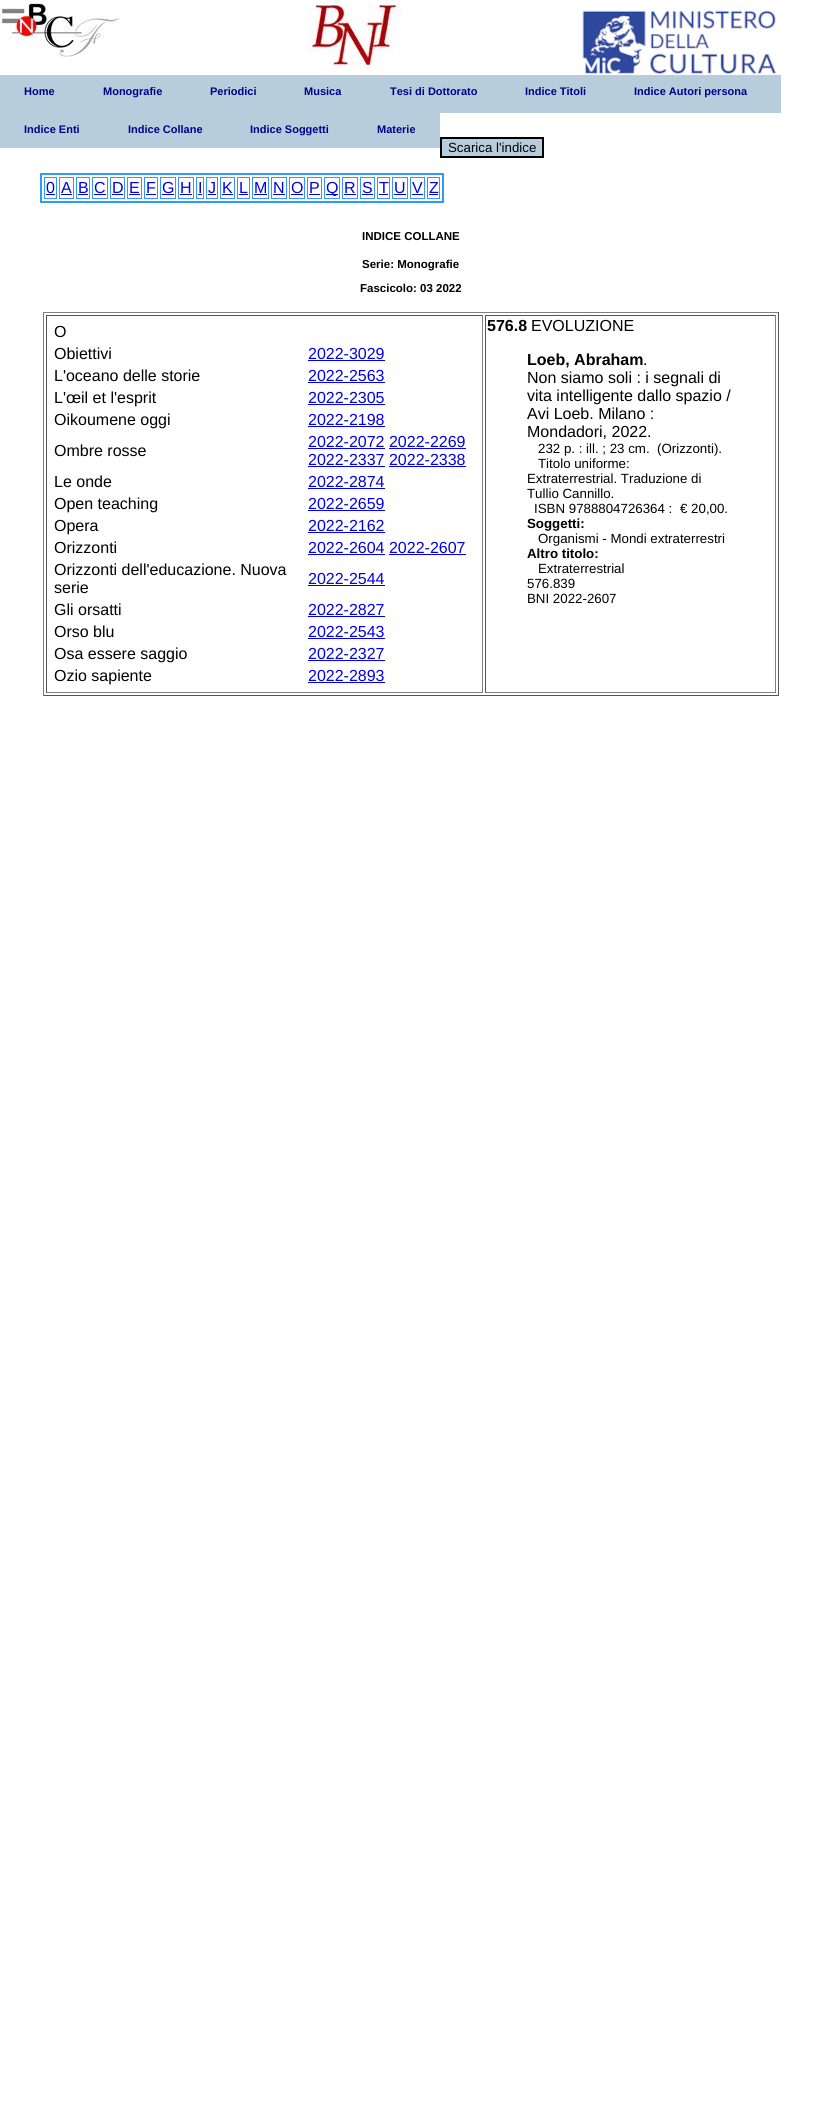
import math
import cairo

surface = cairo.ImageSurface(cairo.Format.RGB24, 822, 2109)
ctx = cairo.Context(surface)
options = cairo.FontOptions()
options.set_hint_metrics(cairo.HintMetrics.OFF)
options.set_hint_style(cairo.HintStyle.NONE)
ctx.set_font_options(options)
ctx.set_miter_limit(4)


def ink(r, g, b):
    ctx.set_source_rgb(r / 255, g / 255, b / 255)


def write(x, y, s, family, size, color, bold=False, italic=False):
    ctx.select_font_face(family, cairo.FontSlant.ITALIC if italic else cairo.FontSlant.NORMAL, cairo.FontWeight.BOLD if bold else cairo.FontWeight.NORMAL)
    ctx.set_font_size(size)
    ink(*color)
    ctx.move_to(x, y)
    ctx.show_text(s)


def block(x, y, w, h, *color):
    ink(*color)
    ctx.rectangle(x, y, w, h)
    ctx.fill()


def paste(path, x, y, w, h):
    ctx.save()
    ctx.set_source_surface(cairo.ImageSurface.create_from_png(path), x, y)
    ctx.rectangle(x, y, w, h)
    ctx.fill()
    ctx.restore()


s1 = dict(family="Liberation Sans", size=11, color=(0, 0, 139), bold=True)
s2 = dict(family="Liberation Sans", size=13.3, color=(0, 0, 0))
s3 = dict(family="Liberation Sans", size=16, color=(0, 0, 238))
s4 = dict(family="Liberation Sans", size=11.5, color=(0, 0, 0), bold=True)
s5 = dict(family="Liberation Sans", size=16, color=(0, 0, 0))
s6 = dict(family="Liberation Sans", size=16, color=(0, 0, 0), bold=True)
s7 = dict(family="Liberation Sans", size=13.3, color=(0, 0, 0), bold=True)

ink(255, 255, 255)
ctx.paint()
paste("pic1.png", 0, 0, 120, 58)
paste("pic2.png", 305, 5, 97, 60)
paste("pic3.png", 582, 10, 195, 64)
block(0, 75, 781, 38, 184, 205, 219)
write(24, 95, "Home", **s1)
write(103, 95, "Monografie", **s1)
write(210, 95, "Periodici", **s1)
write(304, 95, "Musica", **s1)
write(390, 95, "Tesi di Dottorato", **s1)
write(525, 95, "Indice Titoli", **s1)
write(634, 95, "Indice Autori persona", **s1)
block(0, 113, 440, 35, 184, 205, 219)
write(24, 133, "Indice Enti", **s1)
write(128, 133, "Indice Collane", **s1)
write(250, 133, "Indice Soggetti", **s1)
write(377, 133, "Materie", **s1)
ink(184, 205, 219)
ctx.rectangle(441, 138, 102, 19)
ctx.fill_preserve()
ink(0, 0, 0)
ctx.stroke()
write(448, 152, "Scarica l'indice", **s2)
ctx.rectangle(41, 174, 402, 28)
ink(46, 154, 254)
ctx.stroke()
ctx.rectangle(44.5, 177.5, 12, 21)
ctx.set_line_width(1)
ctx.stroke()
write(46, 193, "0", **s3)
block(46, 194, 9, 1, 0, 0, 238)
ctx.rectangle(59.5, 177.5, 14, 21)
ink(46, 154, 254)
ctx.stroke()
write(61, 193, "A", **s3)
block(61, 194, 11, 1, 0, 0, 238)
ctx.rectangle(76.5, 177.5, 13, 21)
ink(46, 154, 254)
ctx.stroke()
write(78, 193, "B", **s3)
block(78, 194, 10, 1, 0, 0, 238)
ctx.rectangle(92.5, 177.5, 15, 21)
ink(46, 154, 254)
ctx.stroke()
write(94, 193, "C", **s3)
block(94, 194, 12, 1, 0, 0, 238)
ctx.rectangle(110.5, 177.5, 14, 21)
ink(46, 154, 254)
ctx.stroke()
write(112, 193, "D", **s3)
block(112, 194, 11, 1, 0, 0, 238)
ctx.rectangle(127.5, 177.5, 14, 21)
ink(46, 154, 254)
ctx.stroke()
write(129, 193, "E", **s3)
block(129, 194, 11, 1, 0, 0, 238)
ctx.rectangle(144.5, 177.5, 13, 21)
ink(46, 154, 254)
ctx.stroke()
write(146, 193, "F", **s3)
block(146, 194, 10, 1, 0, 0, 238)
ctx.rectangle(160.5, 177.5, 15, 21)
ink(46, 154, 254)
ctx.stroke()
write(162, 193, "G", **s3)
block(162, 194, 12, 1, 0, 0, 238)
ctx.rectangle(178.5, 177.5, 15, 21)
ink(46, 154, 254)
ctx.stroke()
write(180, 193, "H", **s3)
block(180, 194, 12, 1, 0, 0, 238)
ctx.rectangle(196.5, 177.5, 7, 21)
ink(46, 154, 254)
ctx.stroke()
write(198, 193, "I", **s3)
block(198, 194, 4, 1, 0, 0, 238)
ctx.rectangle(206.5, 177.5, 11, 21)
ink(46, 154, 254)
ctx.stroke()
write(208, 193, "J", **s3)
block(208, 194, 8, 1, 0, 0, 238)
ctx.rectangle(220.5, 177.5, 14, 21)
ink(46, 154, 254)
ctx.stroke()
write(222, 193, "K", **s3)
block(222, 194, 11, 1, 0, 0, 238)
ctx.rectangle(237.5, 177.5, 12, 21)
ink(46, 154, 254)
ctx.stroke()
write(239, 193, "L", **s3)
block(239, 194, 9, 1, 0, 0, 238)
ctx.rectangle(252.5, 177.5, 16, 21)
ink(46, 154, 254)
ctx.stroke()
write(254, 193, "M", **s3)
block(254, 194, 13, 1, 0, 0, 238)
ctx.rectangle(271.5, 177.5, 15, 21)
ink(46, 154, 254)
ctx.stroke()
write(273, 193, "N", **s3)
block(273, 194, 12, 1, 0, 0, 238)
ctx.rectangle(289.5, 177.5, 15, 21)
ink(46, 154, 254)
ctx.stroke()
write(291, 193, "O", **s3)
block(291, 194, 12, 1, 0, 0, 238)
ctx.rectangle(307.5, 177.5, 14, 21)
ink(46, 154, 254)
ctx.stroke()
write(309, 193, "P", **s3)
block(309, 194, 11, 1, 0, 0, 238)
ctx.rectangle(324.5, 177.5, 15, 21)
ink(46, 154, 254)
ctx.stroke()
block(326, 194, 12, 1, 0, 0, 238)
write(326, 193, "Q", **s3)
ctx.rectangle(342.5, 177.5, 15, 21)
ink(46, 154, 254)
ctx.stroke()
write(344, 193, "R", **s3)
block(344, 194, 12, 1, 0, 0, 238)
ctx.rectangle(360.5, 177.5, 14, 21)
ink(46, 154, 254)
ctx.stroke()
write(362, 193, "S", **s3)
block(362, 194, 11, 1, 0, 0, 238)
ctx.rectangle(377.5, 177.5, 12, 21)
ink(46, 154, 254)
ctx.stroke()
write(379, 193, "T", **s3)
block(379, 194, 9, 1, 0, 0, 238)
ctx.rectangle(392.5, 177.5, 15, 21)
ink(46, 154, 254)
ctx.stroke()
write(394, 193, "U", **s3)
block(394, 194, 12, 1, 0, 0, 238)
ctx.rectangle(410.5, 177.5, 14, 21)
ink(46, 154, 254)
ctx.stroke()
write(412, 193, "V", **s3)
block(412, 194, 11, 1, 0, 0, 238)
ctx.rectangle(427.5, 177.5, 12, 21)
ink(46, 154, 254)
ctx.stroke()
write(429, 193, "Z", **s3)
block(429, 194, 9, 1, 0, 0, 238)
write(362, 240, "INDICE COLLANE", **s4)
write(362, 268, "Serie: Monografie", **s4)
write(360, 292, "Fascicolo: 03 2022", **s4)
block(43, 312, 736, 1, 128, 128, 128)
block(778, 312, 1, 384, 85, 85, 85)
block(43, 695, 736, 1, 85, 85, 85)
block(43, 312, 1, 384, 128, 128, 128)
block(46, 315, 437, 1, 85, 85, 85)
block(482, 315, 1, 378, 128, 128, 128)
block(46, 692, 437, 1, 128, 128, 128)
block(46, 315, 1, 378, 85, 85, 85)
write(54, 337, "O", **s5)
write(54, 359, "Obiettivi", **s5)
write(308, 359, "2022-3029", **s3)
block(308, 360, 77, 1, 0, 0, 238)
write(54, 381, "L'oceano delle storie", **s5)
write(308, 381, "2022-2563", **s3)
block(308, 382, 77, 1, 0, 0, 238)
write(54, 403, "L'œil et l'esprit", **s5)
write(308, 403, "2022-2305", **s3)
block(308, 404, 77, 1, 0, 0, 238)
write(54, 425, "Oikoumene oggi", **s5)
write(308, 425, "2022-2198", **s3)
block(308, 426, 77, 1, 0, 0, 238)
write(54, 456, "Ombre rosse", **s5)
write(308, 447, "2022-2072 2022-2269", **s3)
block(308, 448, 77, 1, 0, 0, 238)
block(389, 448, 77, 1, 0, 0, 238)
write(308, 465, "2022-2337 2022-2338", **s3)
block(308, 466, 77, 1, 0, 0, 238)
block(389, 466, 77, 1, 0, 0, 238)
write(54, 487, "Le onde", **s5)
write(308, 487, "2022-2874", **s3)
block(308, 488, 77, 1, 0, 0, 238)
write(54, 509, "Open teaching", **s5)
write(308, 509, "2022-2659", **s3)
block(308, 510, 77, 1, 0, 0, 238)
write(54, 531, "Opera", **s5)
write(308, 531, "2022-2162", **s3)
block(308, 532, 77, 1, 0, 0, 238)
write(54, 553, "Orizzonti", **s5)
write(308, 553, "2022-2604 2022-2607", **s3)
block(308, 554, 77, 1, 0, 0, 238)
block(389, 554, 77, 1, 0, 0, 238)
write(54, 575, "Orizzonti dell'educazione. Nuova", **s5)
write(54, 593, "serie", **s5)
write(308, 584, "2022-2544", **s3)
block(308, 585, 77, 1, 0, 0, 238)
write(54, 615, "Gli orsatti", **s5)
write(308, 615, "2022-2827", **s3)
block(308, 616, 77, 1, 0, 0, 238)
write(54, 637, "Orso blu", **s5)
write(308, 637, "2022-2543", **s3)
block(308, 638, 77, 1, 0, 0, 238)
write(54, 659, "Osa essere saggio", **s5)
write(308, 659, "2022-2327", **s3)
block(308, 660, 77, 1, 0, 0, 238)
write(54, 681, "Ozio sapiente", **s5)
write(308, 681, "2022-2893", **s3)
block(308, 682, 77, 1, 0, 0, 238)
block(485, 315, 291, 1, 85, 85, 85)
block(775, 315, 1, 378, 128, 128, 128)
block(485, 692, 291, 1, 128, 128, 128)
block(485, 315, 1, 378, 85, 85, 85)
write(487, 331, "576.8", **s6)
write(531, 331, "EVOLUZIONE", **s5)
write(527, 365, "Loeb, Abraham", **s6)
write(643, 365, ".", **s5)
write(527, 383, "Non siamo soli : i segnali di", **s5)
write(527, 401, "vita intelligente dallo spazio /", **s5)
write(527, 419, "Avi Loeb. Milano :", **s5)
write(527, 437, "Mondadori, 2022.", **s5)
write(538, 453, "232 p. : ill. ; 23 cm.  (Orizzonti).", **s2)
write(538, 468, "Titolo uniforme:", **s2)
write(527, 483, "Extraterrestrial. Traduzione di", **s2)
write(527, 498, "Tullio Cannillo.", **s2)
write(534, 513, "ISBN 9788804726364 :", **s2)
write(680, 513, "€ 20,00.", **s2)
write(527, 528, "Soggetti:", **s7)
write(538, 543, "Organismi - Mondi extraterrestri", **s2)
write(527, 558, "Altro titolo:", **s7)
write(538, 573, "Extraterrestrial", **s2)
write(527, 588, "576.839", **s2)
write(527, 603, "BNI 2022-2607", **s2)
surface.write_to_png("screenshot.png")
